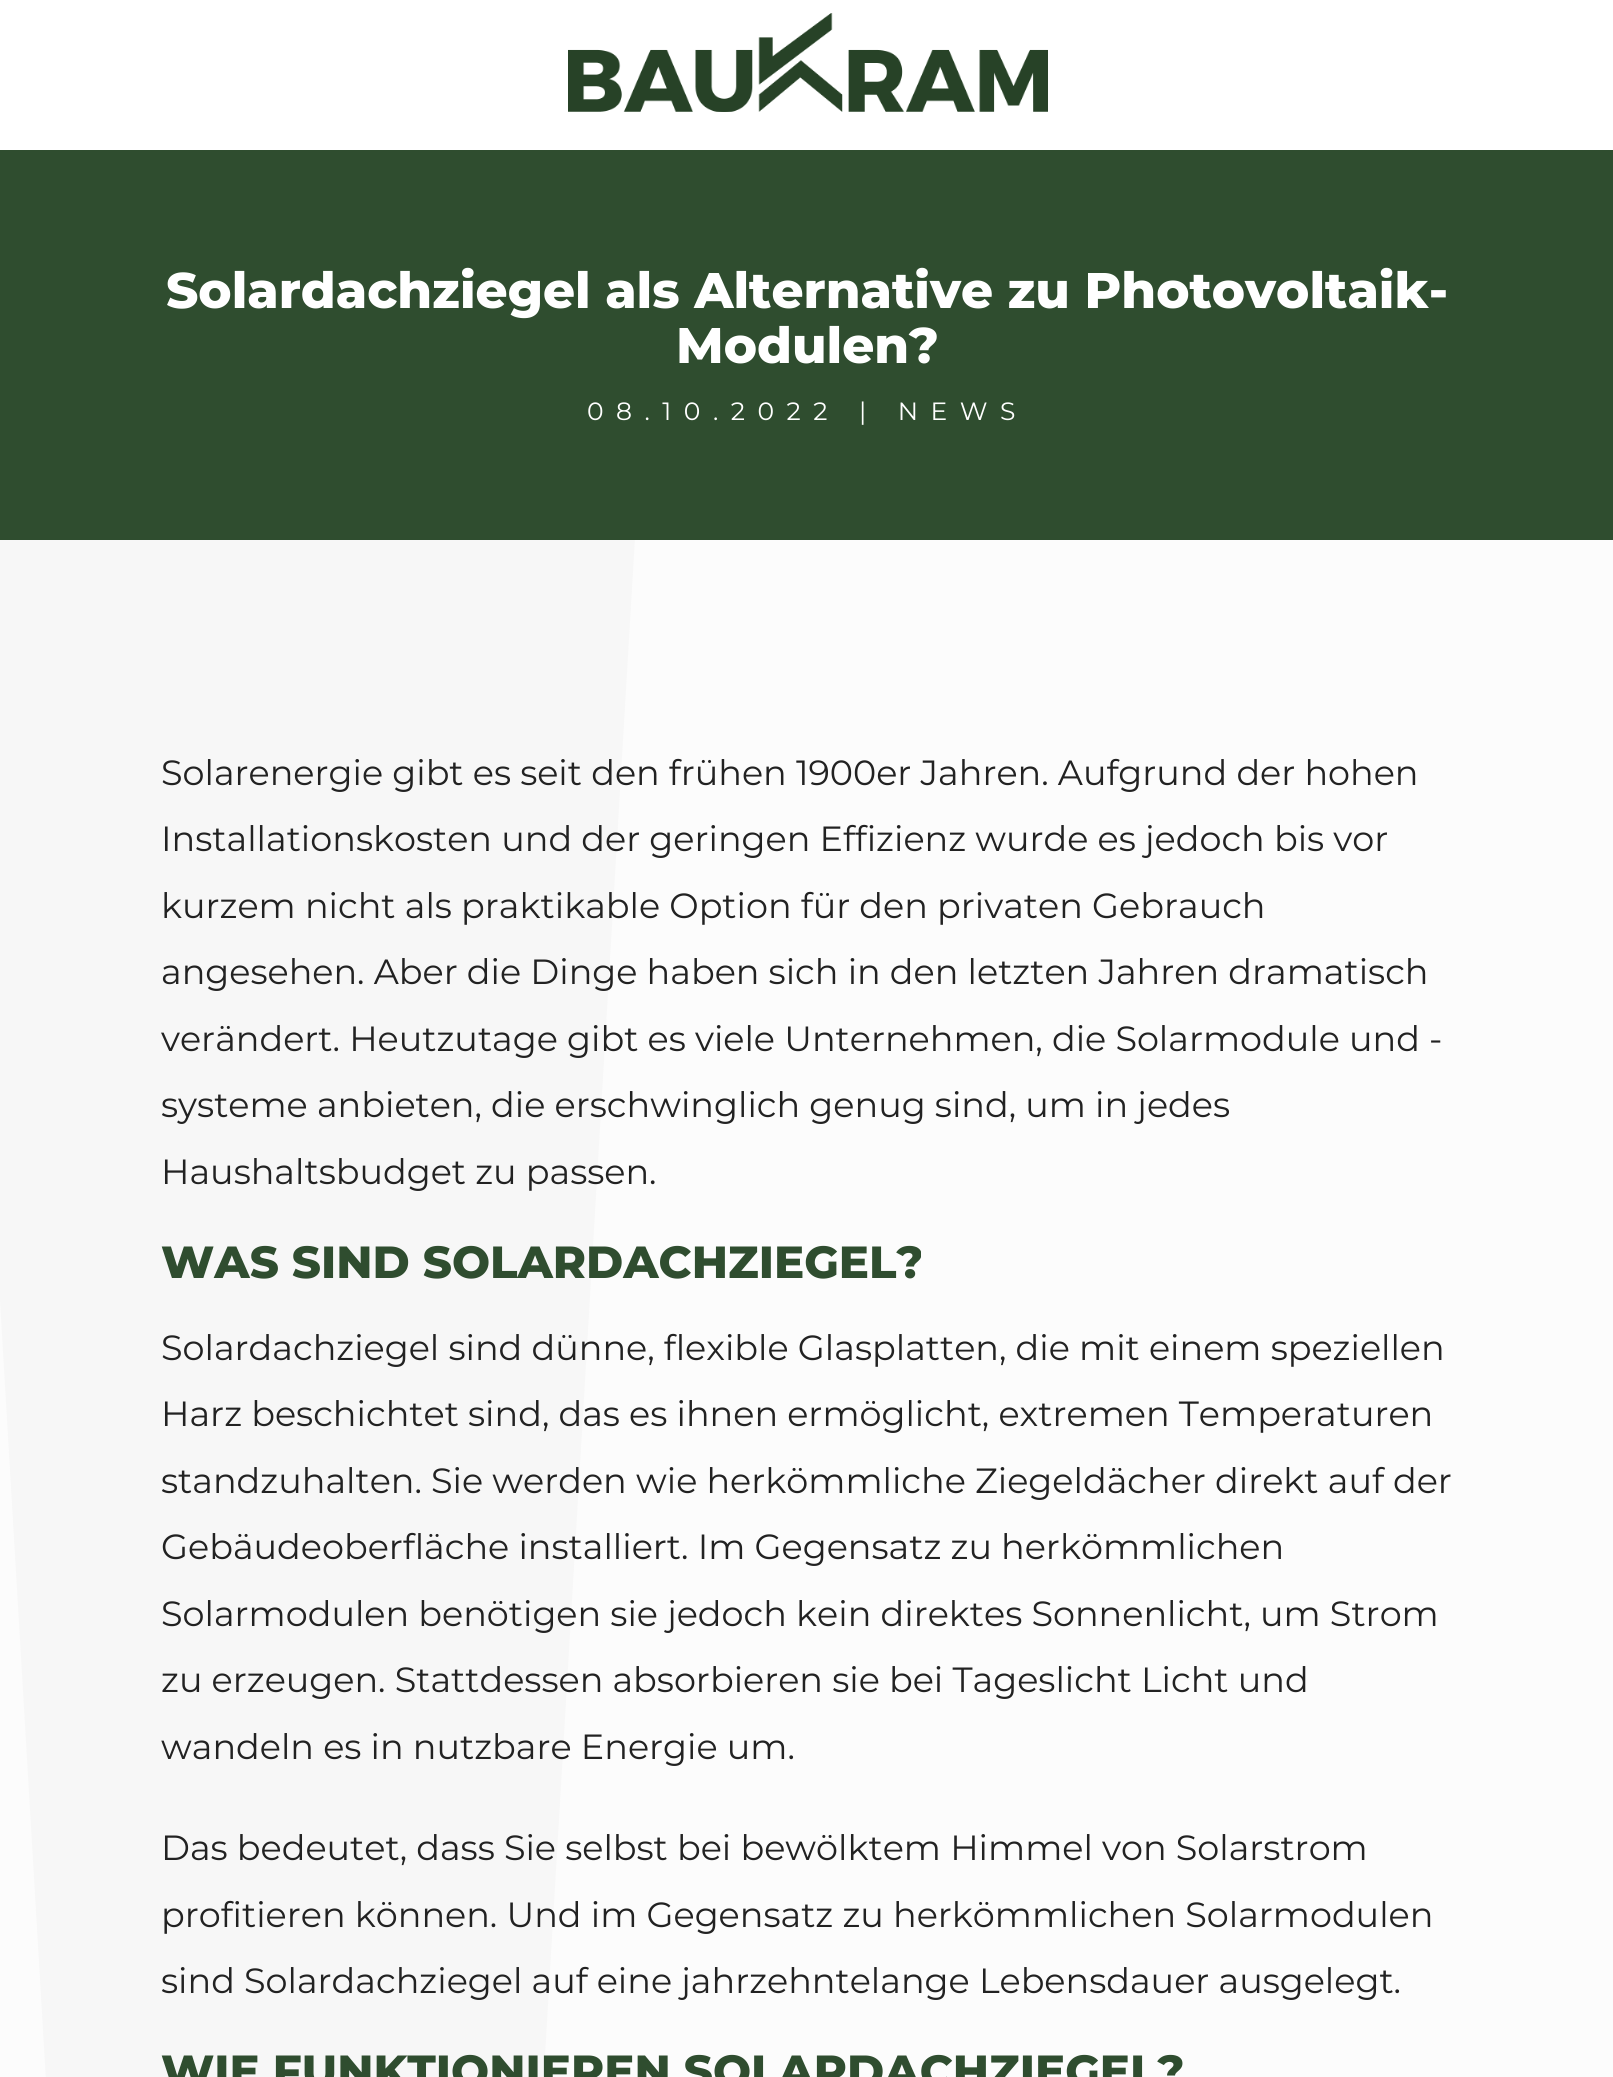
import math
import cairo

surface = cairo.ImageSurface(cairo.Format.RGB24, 1613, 2077)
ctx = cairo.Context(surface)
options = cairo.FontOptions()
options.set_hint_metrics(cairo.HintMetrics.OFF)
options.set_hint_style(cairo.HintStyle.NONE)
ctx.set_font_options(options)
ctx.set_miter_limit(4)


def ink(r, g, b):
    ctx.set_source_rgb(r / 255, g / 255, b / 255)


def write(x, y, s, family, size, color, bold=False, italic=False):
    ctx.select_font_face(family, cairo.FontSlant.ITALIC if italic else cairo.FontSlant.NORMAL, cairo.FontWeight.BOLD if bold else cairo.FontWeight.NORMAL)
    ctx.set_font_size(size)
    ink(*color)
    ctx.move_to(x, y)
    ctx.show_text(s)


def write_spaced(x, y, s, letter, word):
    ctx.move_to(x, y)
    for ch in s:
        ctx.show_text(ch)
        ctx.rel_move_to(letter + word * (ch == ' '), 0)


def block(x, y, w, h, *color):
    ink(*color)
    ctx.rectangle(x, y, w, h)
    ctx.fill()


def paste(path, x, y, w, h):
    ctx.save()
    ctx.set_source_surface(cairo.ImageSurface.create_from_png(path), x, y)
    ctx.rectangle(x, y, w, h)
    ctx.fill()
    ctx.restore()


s1 = dict(family="Montserrat ExtraBold", size=50, color=(255, 255, 255))
s2 = dict(family="Montserrat", size=35, color=(34, 34, 34))
s3 = dict(family="Montserrat ExtraBold", size=45, color=(47, 77, 47))

ink(255, 255, 255)
ctx.paint()
paste("pic1.png", 568, 13, 480, 99)
block(0, 150, 1613, 390, 47, 77, 47)
write(166, 308, "Solardachziegel als Alternative zu Photovoltaik-", **s1)
write(676, 363, "Modulen?", **s1)
ctx.select_font_face("Montserrat")
ctx.set_font_size(25)
write_spaced(587, 420, "08.10.2022 | NEWS", 12.5, 0)
block(0, 540, 1613, 1537, 252, 252, 252)
ctx.save()
ctx.rectangle(0, 540, 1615, 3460)
ctx.clip()
ink(247, 247, 247)
ctx.new_path()
ctx.move_to(294, 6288)
ctx.line_to(635, 538)
ctx.line_to(-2, 538)
ctx.line_to(-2, 1267)
ctx.close_path()
ctx.move_to(-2, 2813)
ctx.line_to(494, 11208)
ctx.line_to(-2, 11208)
ctx.close_path()
ctx.fill()
ctx.restore()
write(161, 785, "Solarenergie gibt es seit den frühen 1900er Jahren. Aufgrund der hohen", **s2)
write(161, 851, "Installationskosten und der geringen Effizienz wurde es jedoch bis vor", **s2)
write(161, 918, "kurzem nicht als praktikable Option für den privaten Gebrauch", **s2)
write(161, 984, "angesehen. Aber die Dinge haben sich in den letzten Jahren dramatisch", **s2)
write(161, 1051, "verändert. Heutzutage gibt es viele Unternehmen, die Solarmodule und -", **s2)
write(161, 1117, "systeme anbieten, die erschwinglich genug sind, um in jedes", **s2)
write(161, 1184, "Haushaltsbudget zu passen.", **s2)
write(161, 1278, "WAS SIND SOLARDACHZIEGEL?", **s3)
write(161, 1360, "Solardachziegel sind dünne, flexible Glasplatten, die mit einem speziellen", **s2)
write(161, 1426, "Harz beschichtet sind, das es ihnen ermöglicht, extremen Temperaturen", **s2)
write(161, 1493, "standzuhalten. Sie werden wie herkömmliche Ziegeldächer direkt auf der", **s2)
write(161, 1559, "Gebäudeoberfläche installiert. Im Gegensatz zu herkömmlichen", **s2)
write(161, 1626, "Solarmodulen benötigen sie jedoch kein direktes Sonnenlicht, um Strom", **s2)
write(161, 1692, "zu erzeugen. Stattdessen absorbieren sie bei Tageslicht Licht und", **s2)
write(161, 1759, "wandeln es in nutzbare Energie um.", **s2)
write(161, 1860, "Das bedeutet, dass Sie selbst bei bewölktem Himmel von Solarstrom", **s2)
write(161, 1927, "profitieren können. Und im Gegensatz zu herkömmlichen Solarmodulen", **s2)
write(161, 1993, "sind Solardachziegel auf eine jahrzehntelange Lebensdauer ausgelegt.", **s2)
write(161, 2087, "WIE FUNKTIONIEREN SOLARDACHZIEGEL?", **s3)
surface.write_to_png("screenshot.png")
